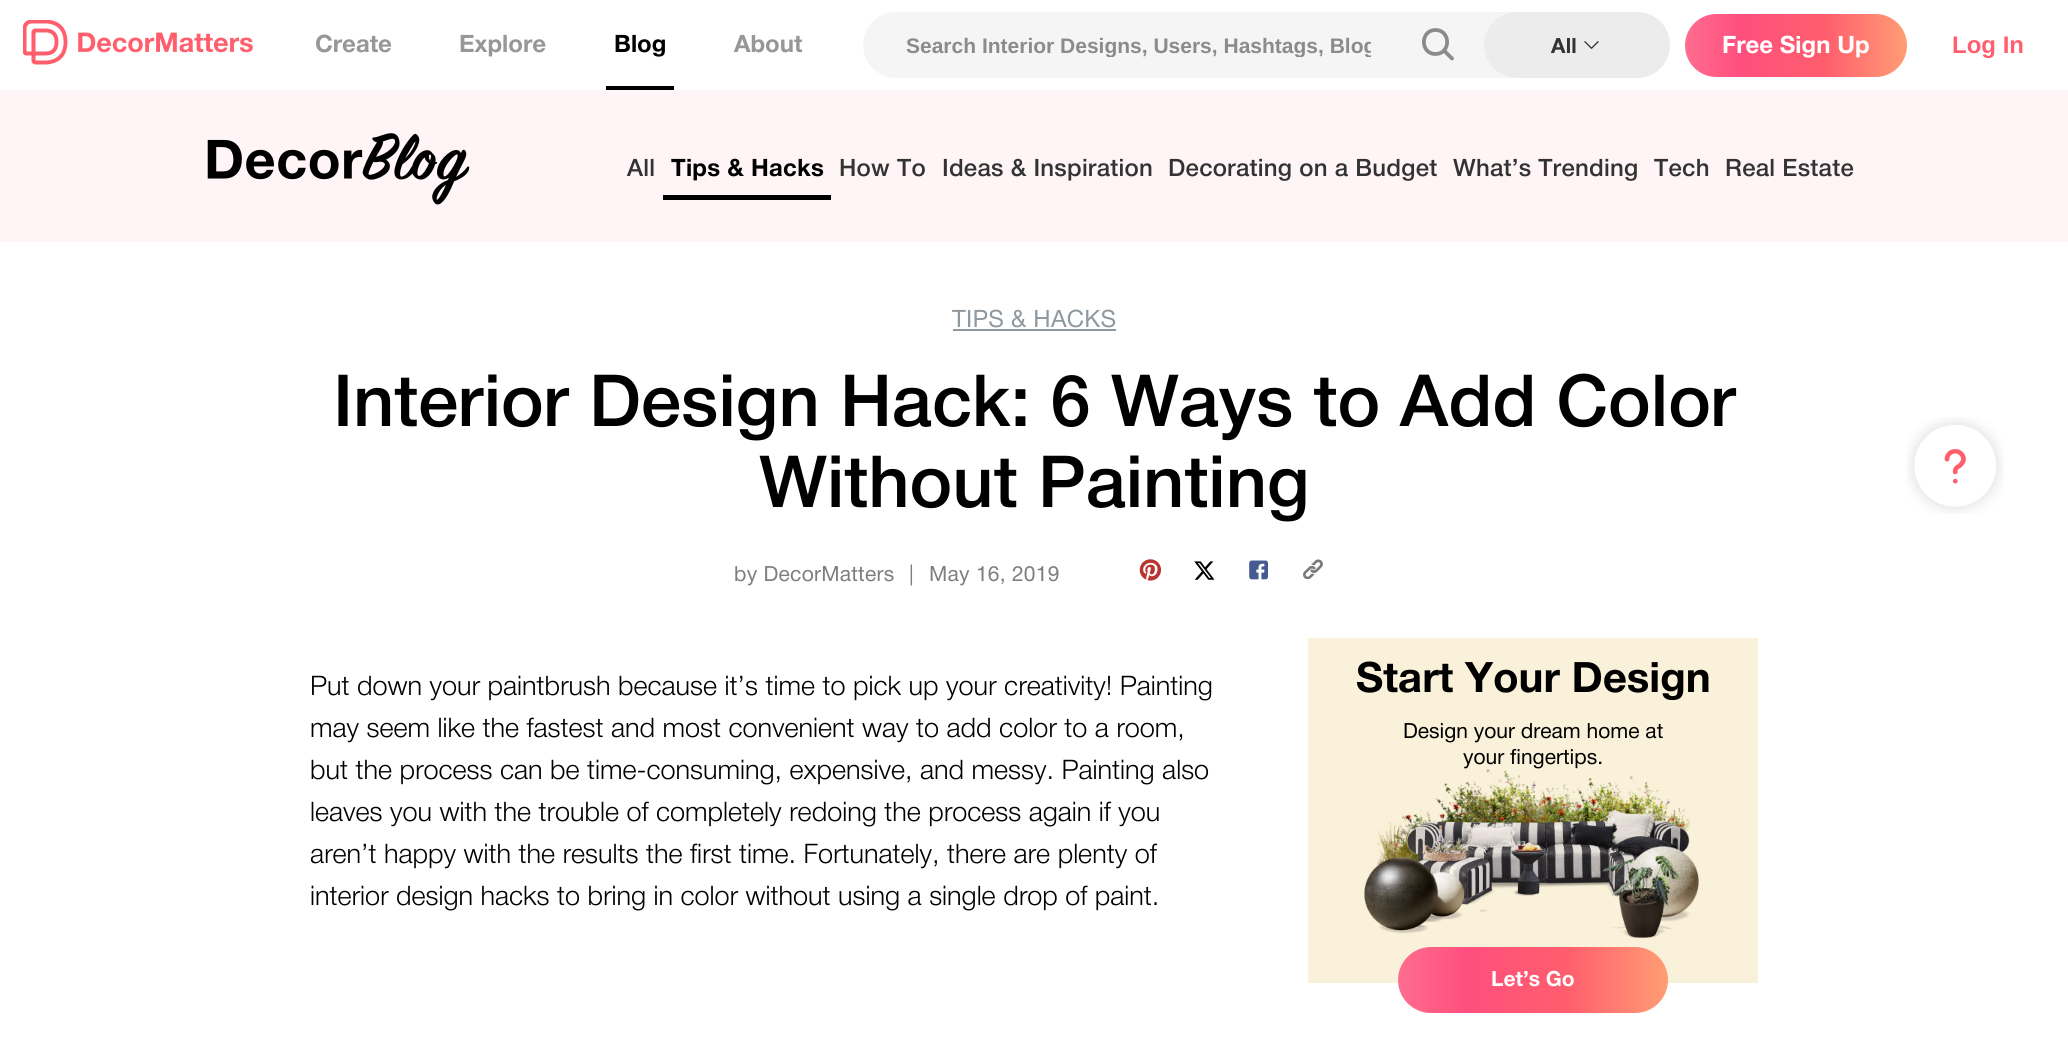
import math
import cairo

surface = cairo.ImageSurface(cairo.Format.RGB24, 2068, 1040)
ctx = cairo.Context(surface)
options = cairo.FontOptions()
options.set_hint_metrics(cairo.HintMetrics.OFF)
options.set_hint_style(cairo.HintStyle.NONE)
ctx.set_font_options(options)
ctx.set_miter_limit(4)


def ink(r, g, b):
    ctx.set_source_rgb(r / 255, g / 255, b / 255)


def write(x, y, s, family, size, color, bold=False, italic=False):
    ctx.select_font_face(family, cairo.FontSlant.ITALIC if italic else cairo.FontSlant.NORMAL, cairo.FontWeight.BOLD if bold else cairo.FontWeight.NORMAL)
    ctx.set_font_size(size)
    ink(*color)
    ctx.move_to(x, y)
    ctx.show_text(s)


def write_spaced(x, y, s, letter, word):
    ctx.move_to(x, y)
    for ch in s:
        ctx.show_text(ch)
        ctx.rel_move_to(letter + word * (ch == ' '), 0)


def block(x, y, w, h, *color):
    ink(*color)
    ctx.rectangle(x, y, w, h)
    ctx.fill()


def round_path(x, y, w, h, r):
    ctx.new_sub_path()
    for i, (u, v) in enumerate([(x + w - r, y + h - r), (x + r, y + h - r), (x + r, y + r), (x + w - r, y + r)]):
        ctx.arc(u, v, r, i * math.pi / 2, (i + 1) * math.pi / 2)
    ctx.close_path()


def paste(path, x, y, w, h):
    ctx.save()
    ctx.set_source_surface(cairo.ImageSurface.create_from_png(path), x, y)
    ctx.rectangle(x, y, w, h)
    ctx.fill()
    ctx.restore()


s1 = dict(family="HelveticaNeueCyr", size=24, color=(151, 151, 151), bold=True)
s2 = dict(family="HelveticaNeueCyr", size=24, color=(0, 0, 0), bold=True)
s3 = dict(family="Liberation Sans", size=21, color=(139, 139, 139), bold=True)
s4 = dict(family="HelveticaNeueCyr", size=24, color=(255, 255, 255), bold=True)
s5 = dict(family="Liberation Sans", size=24, color=(255, 94, 109), bold=True)
s6 = dict(family="HelveticaNeueCyr Medium", size=72, color=(0, 0, 0))
s7 = dict(family="HelveticaNeueCyr Light", size=27, color=(0, 0, 0))
s8 = dict(family="HelveticaNeueCyr", size=42, color=(0, 0, 0), bold=True)
s9 = dict(family="HelveticaNeueCyr", size=21, color=(0, 0, 0))
s10 = dict(family="HelveticaNeueCyr", size=21, color=(255, 255, 255), bold=True)

ink(255, 255, 255)
ctx.paint()
paste("pic1.png", 23, 20, 230, 45)
write(315, 52, "Create", **s1)
write(459, 52, "Explore", **s1)
block(606, 86, 68, 4, 0, 0, 0)
write(614, 52, "Blog", **s2)
write(734, 52, "About", **s1)
ink(245, 245, 245)
round_path(863, 12, 807, 66, 33)
ctx.fill()
ctx.save()
ctx.rectangle(906, 33, 465, 24)
ctx.clip()
write(906, 53, "Search Interior Designs, Users, Hashtags, Blog", **s3)
ctx.restore()
ctx.new_path()
ctx.move_to(1435.5, 54)
ctx.curve_to(1451, 54, 1451, 30, 1435.5, 30)
ctx.curve_to(1420, 30, 1420, 54, 1435.5, 54)
ctx.close_path()
ctx.move_to(1444.5, 51)
ctx.line_to(1452, 58.5)
ink(139, 139, 139)
ctx.set_line_width(3.8)
ctx.set_line_cap(cairo.LineCap.ROUND)
ctx.set_line_join(cairo.LineJoin.ROUND)
ctx.stroke()
ink(236, 236, 236)
round_path(1484, 12, 186, 66, 33)
ctx.fill()
ctx.set_font_size(21)
ink(51, 51, 51)
write_spaced(1551, 53, "All", 0.25, 0)
paste("pic2.png", 1584, 41, 15, 8)
gradient = cairo.LinearGradient(1907, 45, 1685, 45)
gradient.add_color_stop_rgba(0, 1, 0.616, 0.455, 1)
gradient.add_color_stop_rgba(0.37, 1, 0.369, 0.427, 1)
gradient.add_color_stop_rgba(0.75, 1, 0.31, 0.494, 1)
gradient.add_color_stop_rgba(1, 1, 0.427, 0.565, 1)
ctx.set_source(gradient)
round_path(1685, 14, 222, 63, 31.5)
ctx.fill()
write(1722, 53, "Free Sign Up", **s4)
write(1952, 53, "Log In", **s5)
block(0, 90, 2068, 152, 255, 245, 246)
paste("pic3.png", 207, 133, 263, 72)
ctx.select_font_face("HelveticaNeueCyr Medium")
ink(51, 51, 51)
write_spaced(627, 176, "All", 0.25, 0)
block(663, 195, 168, 5, 0, 0, 0)
ctx.select_font_face("HelveticaNeueCyr", cairo.FontSlant.NORMAL, cairo.FontWeight.BOLD)
write_spaced(671, 176, "Tips & Hacks", 0.25, 0)
ctx.select_font_face("HelveticaNeueCyr Medium")
ink(51, 51, 51)
write_spaced(839, 176, "How To", 0.25, 0)
write_spaced(942, 176, "Ideas & Inspiration", 0.25, 0)
write_spaced(1168, 176, "Decorating on a Budget", 0.25, 0)
write_spaced(1453, 176, "What’s Trending", 0.25, 0)
write_spaced(1654, 176, "Tech", 0.25, 0)
write_spaced(1725, 176, "Real Estate", 0.25, 0)
ctx.select_font_face("HelveticaNeueCyr")
ink(143, 152, 159)
write_spaced(952, 327, "TIPS & HACKS", 0.25, 0)
block(953, 329, 163, 2, 143, 152, 159)
write(333, 426, "Interior Design Hack: 6 Ways to Add Color", **s6)
write(759, 507, "Without Painting", **s6)
ctx.select_font_face("HelveticaNeueCyr")
ctx.set_font_size(21)
ink(126, 126, 126)
write_spaced(734, 581, "by DecorMatters", 0.25, 0)
write_spaced(909, 581, "|", 0.25, 0)
write_spaced(929, 581, "May 16, 2019", 0.25, 0)
paste("pic4.png", 1139, 559, 23, 22)
paste("pic5.png", 1194, 561, 21, 19)
paste("pic6.png", 1249, 560, 19, 20)
paste("pic7.png", 1303, 559, 20, 20)
write(310, 695, "Put down your paintbrush because it’s time to pick up your creativity! Painting", **s7)
write(310, 737, "may seem like the fastest and most convenient way to add color to a room,", **s7)
write(310, 779, "but the process can be time-consuming, expensive, and messy. Painting also", **s7)
write(310, 821, "leaves you with the trouble of completely redoing the process again if you", **s7)
write(310, 863, "aren’t happy with the results the first time. Fortunately, there are plenty of", **s7)
write(310, 905, "interior design hacks to bring in color without using a single drop of paint.", **s7)
block(1308, 638, 450, 345, 250, 241, 218)
write(1356, 692, "Start Your Design", **s8)
write(1403, 738, "Design your dream home at", **s9)
write(1463, 764, "your fingertips.", **s9)
paste("pic8.png", 1364, 769, 335, 170)
gradient = cairo.LinearGradient(1668, 980, 1398, 980)
gradient.add_color_stop_rgba(0, 1, 0.616, 0.455, 1)
gradient.add_color_stop_rgba(0.37, 1, 0.369, 0.427, 1)
gradient.add_color_stop_rgba(0.75, 1, 0.31, 0.494, 1)
gradient.add_color_stop_rgba(1, 1, 0.427, 0.565, 1)
ctx.set_source(gradient)
round_path(1398, 947, 270, 66, 33)
ctx.fill()
write(1491, 986, "Let’s Go", **s10)
paste("pic9.png", 1907, 417, 97, 97)
surface.write_to_png("screenshot.png")
